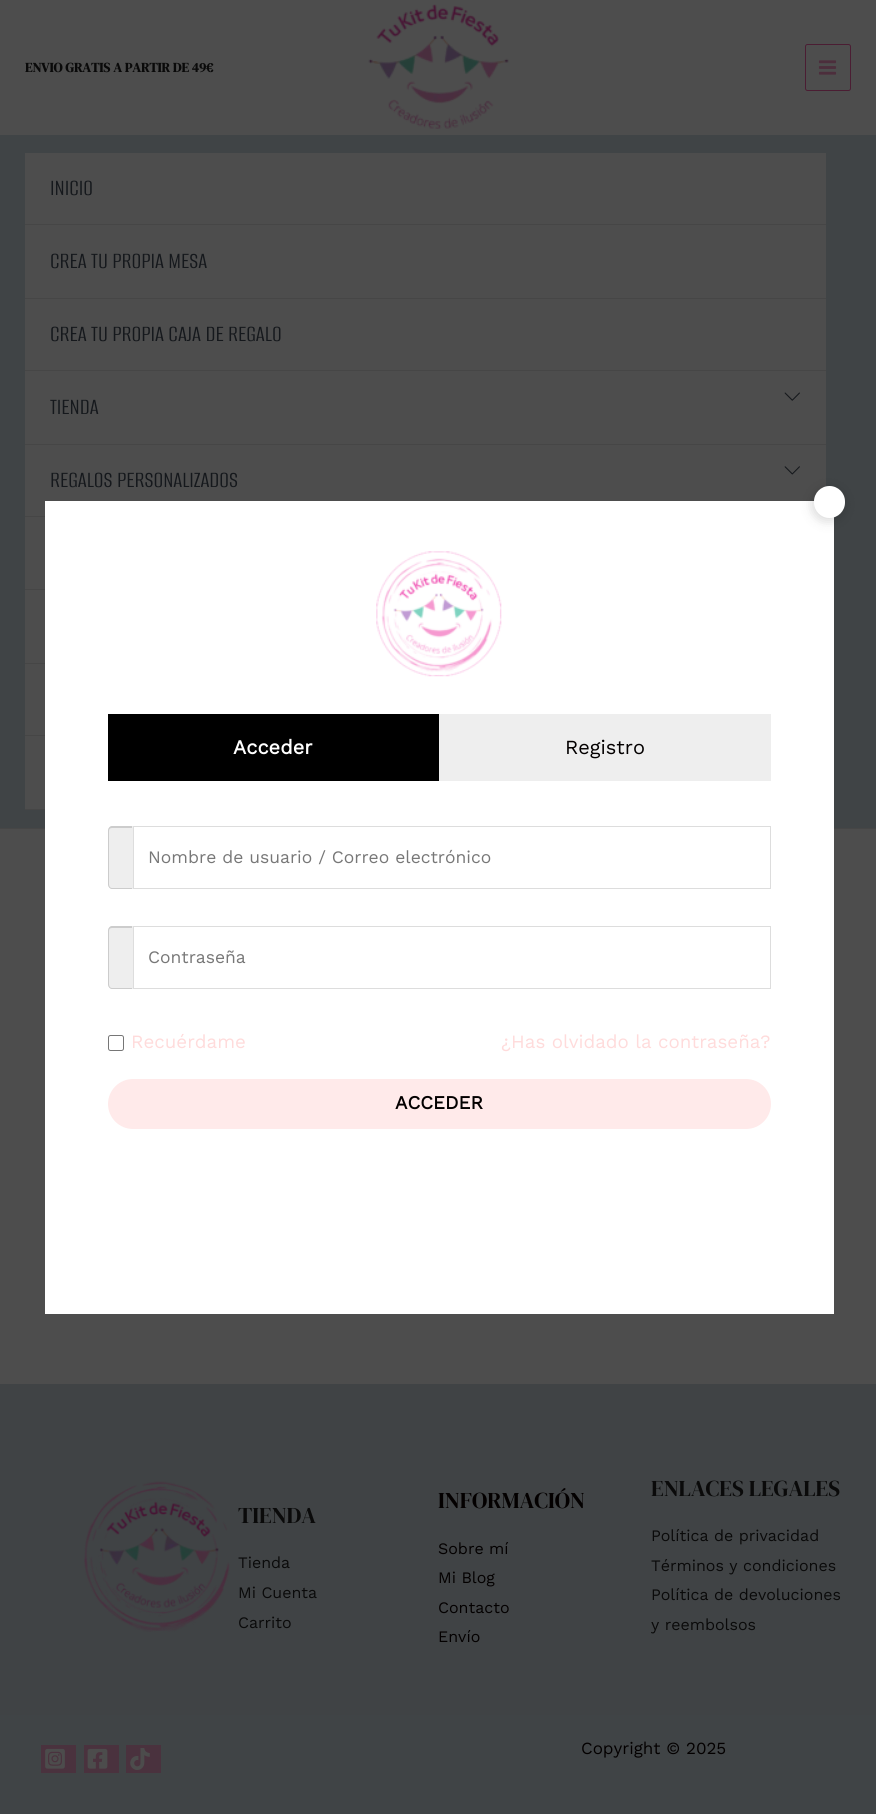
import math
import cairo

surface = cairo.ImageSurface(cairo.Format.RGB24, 876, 1814)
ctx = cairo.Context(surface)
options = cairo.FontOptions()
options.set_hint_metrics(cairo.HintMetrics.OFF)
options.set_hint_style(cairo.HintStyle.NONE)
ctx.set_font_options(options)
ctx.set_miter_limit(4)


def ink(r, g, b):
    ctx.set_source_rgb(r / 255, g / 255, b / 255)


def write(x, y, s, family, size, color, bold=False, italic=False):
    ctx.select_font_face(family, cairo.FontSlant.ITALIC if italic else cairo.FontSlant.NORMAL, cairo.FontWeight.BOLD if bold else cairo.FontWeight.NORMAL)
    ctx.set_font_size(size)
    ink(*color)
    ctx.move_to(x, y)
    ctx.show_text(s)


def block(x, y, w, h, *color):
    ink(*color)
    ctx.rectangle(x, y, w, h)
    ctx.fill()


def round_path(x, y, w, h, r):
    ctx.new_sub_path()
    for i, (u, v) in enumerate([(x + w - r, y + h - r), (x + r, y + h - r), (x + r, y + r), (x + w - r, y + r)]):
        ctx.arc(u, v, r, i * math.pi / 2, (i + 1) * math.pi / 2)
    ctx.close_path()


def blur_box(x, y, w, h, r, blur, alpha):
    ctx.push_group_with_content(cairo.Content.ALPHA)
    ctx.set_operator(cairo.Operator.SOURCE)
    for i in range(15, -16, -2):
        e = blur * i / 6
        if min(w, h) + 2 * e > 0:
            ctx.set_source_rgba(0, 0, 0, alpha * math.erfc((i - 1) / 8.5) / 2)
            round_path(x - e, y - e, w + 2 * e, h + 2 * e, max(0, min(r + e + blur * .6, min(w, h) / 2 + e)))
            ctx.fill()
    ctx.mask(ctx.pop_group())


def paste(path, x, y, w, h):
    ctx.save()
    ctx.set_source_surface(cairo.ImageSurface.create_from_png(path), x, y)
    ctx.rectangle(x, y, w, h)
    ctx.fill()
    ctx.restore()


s1 = dict(family="DM Serif Display", size=13.3, color=(10, 10, 10), bold=True)
s2 = dict(family="Alumni Sans Thin", size=24, color=(21, 24, 28))
s3 = dict(family="DM Serif Display", size=22.75, color=(10, 10, 10))
s4 = dict(family="Work Sans", size=16, color=(10, 10, 10))
s5 = dict(family="DM Serif Display", size=22.75, color=(3, 0, 0))
s6 = dict(family="Work Sans", size=16, color=(3, 0, 0))
s7 = dict(family="Work Sans", size=17, color=(3, 0, 0))
s8 = dict(family="Work Sans", size=20, color=(255, 255, 255), bold=True)
s9 = dict(family="Work Sans", size=20, color=(3, 0, 0))
s10 = dict(family="Work Sans", size=17.5, color=(119, 119, 119))
s11 = dict(family="Work Sans", size=18.75, color=(255, 219, 219))
s12 = dict(family="Work Sans", size=18.75, color=(3, 0, 0), bold=True)

ink(77, 77, 77)
ctx.paint()
write(25, 72, "ENVIO GRATIS A PARTIR DE 49€", **s1)
paste("pic1.png", 368, 4, 141, 125)
round_path(805.5, 44.5, 45, 46, 2)
ink(75, 29, 51)
ctx.set_line_width(1)
ctx.stroke()
paste("pic2.png", 818, 60, 19, 15)
block(0, 135, 876, 693, 64, 68, 70)
block(0, 828, 876, 1, 70, 70, 70)
block(25, 153, 801, 656, 77, 77, 77)
block(25, 224, 801, 1, 70, 70, 70)
write(50, 195, "INICIO", **s2)
block(25, 298, 801, 1, 70, 70, 70)
write(50, 268, "CREA TU PROPIA MESA", **s2)
block(25, 370, 801, 1, 70, 70, 70)
write(50, 341, "CREA TU PROPIA CAJA DE REGALO", **s2)
paste("pic3.png", 784, 392, 16, 9)
block(25, 444, 801, 1, 70, 70, 70)
write(50, 414, "TIENDA", **s2)
paste("pic4.png", 784, 466, 16, 9)
block(25, 516, 20, 1, 70, 70, 70)
write(50, 487, "REGALOS PERSONALIZADOS", **s2)
block(25, 589, 20, 1, 70, 70, 70)
block(25, 663, 20, 1, 70, 70, 70)
block(25, 735, 20, 1, 70, 70, 70)
block(25, 809, 20, 1, 70, 70, 70)
block(0, 1384, 876, 331, 64, 67, 69)
paste("pic5.png", 84, 1481, 146, 151)
write(238, 1523, "TIENDA", **s3)
write(238, 1568, "Tienda", **s4)
write(238, 1598, "Mi Cuenta", **s4)
write(238, 1628, "Carrito", **s4)
write(438, 1508, "INFORMACIÓN", **s5)
write(438, 1554, "Sobre mí", **s6)
write(438, 1583, "Mi Blog", **s6)
write(438, 1613, "Contacto", **s6)
write(438, 1642, "Envío", **s6)
write(651, 1496, "ENLACES LEGALES", **s3)
write(651, 1541, "Política de privacidad", **s4)
write(651, 1571, "Términos y condiciones", **s4)
write(651, 1600, "Política de devoluciones", **s4)
write(651, 1630, "y reembolsos", **s4)
block(0, 1715, 876, 99, 64, 68, 70)
block(41, 1745, 35, 28, 74, 50, 62)
paste("pic6.png", 45, 1748, 20, 21)
block(84, 1745, 35, 28, 74, 50, 62)
paste("pic7.png", 87, 1748, 21, 21)
block(126, 1745, 35, 28, 74, 50, 62)
paste("pic8.png", 130, 1748, 20, 22)
write(581, 1754, "Copyright © 2025", **s7)
block(45, 501, 789, 813, 255, 255, 255)
ink(0, 0, 0)
blur_box(813, 489, 31, 31, 15.5, 6, 0.17)
ink(255, 255, 255)
round_path(814, 486, 31, 32, 15.5)
ctx.fill()
paste("pic9.png", 376, 551, 126, 126)
block(108, 714, 331, 67, 0, 0, 0)
write(233, 754, "Acceder", **s8)
block(439, 714, 332, 67, 238, 238, 238)
write(565, 754, "Registro", **s9)
ink(238, 238, 238)
ctx.new_path()
ctx.move_to(113, 826)
ctx.line_to(133, 826)
ctx.line_to(133, 889)
ctx.line_to(113, 889)
ctx.curve_to(110, 889, 108, 887, 108, 884)
ctx.line_to(108, 831)
ctx.curve_to(108, 828, 110, 826, 113, 826)
ctx.close_path()
ctx.fill()
ink(204, 204, 204)
ctx.set_fill_rule(cairo.FillRule.EVEN_ODD)
ctx.new_path()
ctx.move_to(112, 826)
ctx.line_to(132, 826)
ctx.line_to(132, 889)
ctx.line_to(112, 889)
ctx.curve_to(110, 889, 108, 887, 108, 884)
ctx.line_to(108, 831)
ctx.curve_to(108, 828, 110, 826, 112, 826)
ctx.close_path()
ctx.move_to(112, 828)
ctx.line_to(132, 828)
ctx.line_to(132, 888)
ctx.line_to(112, 888)
ctx.curve_to(110, 888, 109, 886, 109, 884)
ctx.line_to(109, 831)
ctx.curve_to(109, 829, 110, 828, 112, 828)
ctx.close_path()
ctx.fill()
ctx.rectangle(133.5, 826.5, 637, 62)
ink(221, 221, 221)
ctx.stroke()
write(148, 863, "Nombre de usuario / Correo electrónico", **s10)
ink(238, 238, 238)
ctx.new_path()
ctx.move_to(113, 926)
ctx.line_to(133, 926)
ctx.line_to(133, 989)
ctx.line_to(113, 989)
ctx.curve_to(110, 989, 108, 987, 108, 984)
ctx.line_to(108, 931)
ctx.curve_to(108, 928, 110, 926, 113, 926)
ctx.close_path()
ctx.fill()
ink(204, 204, 204)
ctx.new_path()
ctx.move_to(112, 926)
ctx.line_to(132, 926)
ctx.line_to(132, 989)
ctx.line_to(112, 989)
ctx.curve_to(110, 989, 108, 987, 108, 984)
ctx.line_to(108, 931)
ctx.curve_to(108, 928, 110, 926, 112, 926)
ctx.close_path()
ctx.move_to(112, 928)
ctx.line_to(132, 928)
ctx.line_to(132, 988)
ctx.line_to(112, 988)
ctx.curve_to(110, 988, 109, 986, 109, 984)
ctx.line_to(109, 931)
ctx.curve_to(109, 929, 110, 928, 112, 928)
ctx.close_path()
ctx.fill()
ctx.rectangle(133.5, 926.5, 637, 62)
ink(221, 221, 221)
ctx.stroke()
write(148, 963, "Contraseña", **s10)
round_path(108.5, 1035.5, 15, 15, 2)
ink(118, 118, 118)
ctx.stroke()
write(131, 1048, "Recuérdame", **s11)
write(501, 1048, "¿Has olvidado la contraseña?", **s11)
ink(255, 234, 234)
round_path(108, 1079, 663, 50, 25)
ctx.fill()
write(395, 1109, "ACCEDER", **s12)
surface.write_to_png("screenshot.png")
